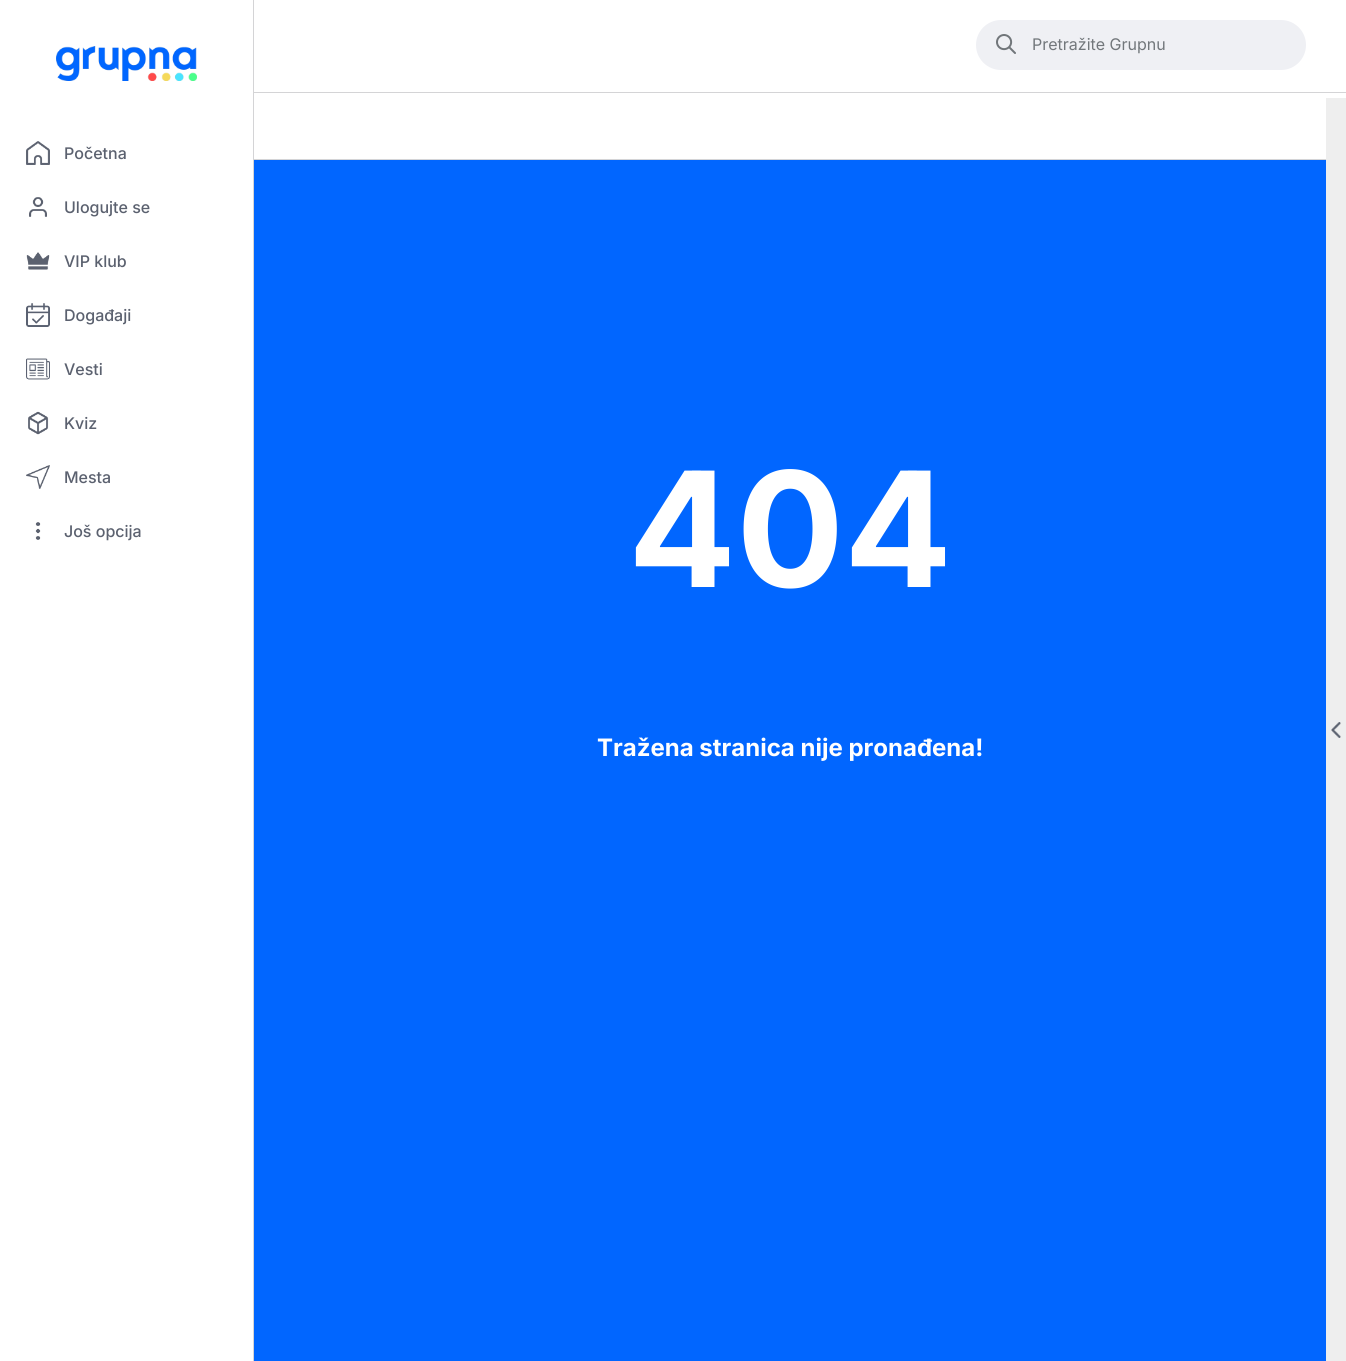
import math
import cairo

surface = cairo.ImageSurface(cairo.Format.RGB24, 1346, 1361)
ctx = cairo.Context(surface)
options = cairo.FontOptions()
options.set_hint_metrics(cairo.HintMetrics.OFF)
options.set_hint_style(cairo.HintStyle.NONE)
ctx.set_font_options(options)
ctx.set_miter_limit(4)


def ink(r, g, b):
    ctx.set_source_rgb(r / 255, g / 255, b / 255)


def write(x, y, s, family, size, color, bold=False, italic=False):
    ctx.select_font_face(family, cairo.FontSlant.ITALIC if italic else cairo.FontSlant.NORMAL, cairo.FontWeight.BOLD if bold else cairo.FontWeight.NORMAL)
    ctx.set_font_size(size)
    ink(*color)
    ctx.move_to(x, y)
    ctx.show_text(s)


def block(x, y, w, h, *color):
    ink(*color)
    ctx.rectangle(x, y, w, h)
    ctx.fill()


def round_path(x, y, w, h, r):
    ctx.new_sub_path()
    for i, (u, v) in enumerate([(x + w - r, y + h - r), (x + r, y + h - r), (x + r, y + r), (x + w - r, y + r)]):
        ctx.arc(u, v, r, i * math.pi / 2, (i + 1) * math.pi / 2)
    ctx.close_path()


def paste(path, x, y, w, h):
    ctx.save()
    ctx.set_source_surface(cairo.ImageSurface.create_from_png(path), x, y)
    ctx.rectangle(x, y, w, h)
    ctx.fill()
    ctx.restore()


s1 = dict(family="Inter", size=16, color=(114, 119, 123))
s2 = dict(family="Inter Medium", size=16, color=(91, 97, 111))
s3 = dict(family="Inter", size=160, color=(255, 255, 255), bold=True)
s4 = dict(family="Inter", size=24, color=(255, 255, 255), bold=True)

ink(255, 255, 255)
ctx.paint()
block(254, 159, 1072, 1, 212, 212, 214)
ink(239, 240, 244)
round_path(976, 20, 330, 50, 25)
ctx.fill()
paste("pic1.png", 996, 34, 20, 20)
write(1032, 50, "Pretražite Grupnu", **s1)
block(254, 92, 1092, 1, 212, 212, 214)
block(253, 0, 1, 1361, 212, 212, 214)
paste("pic2.png", 56, 46, 141, 35)
paste("pic3.png", 26, 141, 24, 24)
write(64, 159, "Početna", **s2)
paste("pic4.png", 29, 197, 18, 20)
write(64, 213, "Ulogujte se", **s2)
paste("pic5.png", 26, 252, 24, 18)
write(64, 267, "VIP klub", **s2)
paste("pic6.png", 26, 303, 24, 24)
write(64, 321, "Događaji", **s2)
paste("pic7.png", 26, 358, 24, 22)
write(64, 375, "Vesti", **s2)
paste("pic8.png", 28, 411, 21, 24)
write(64, 429, "Kviz", **s2)
paste("pic9.png", 26, 465, 24, 24)
write(64, 483, "Mesta", **s2)
paste("pic10.png", 35, 522, 6, 18)
write(64, 537, "Još opcija", **s2)
block(1326, 98, 20, 1263, 238, 238, 238)
paste("pic11.png", 1331, 722, 10, 16)
block(254, 160, 1072, 1201, 1, 102, 255)
write(628, 587, "404", **s3)
write(597, 756, "Tražena stranica nije pronađena!", **s4)
surface.write_to_png("screenshot.png")
